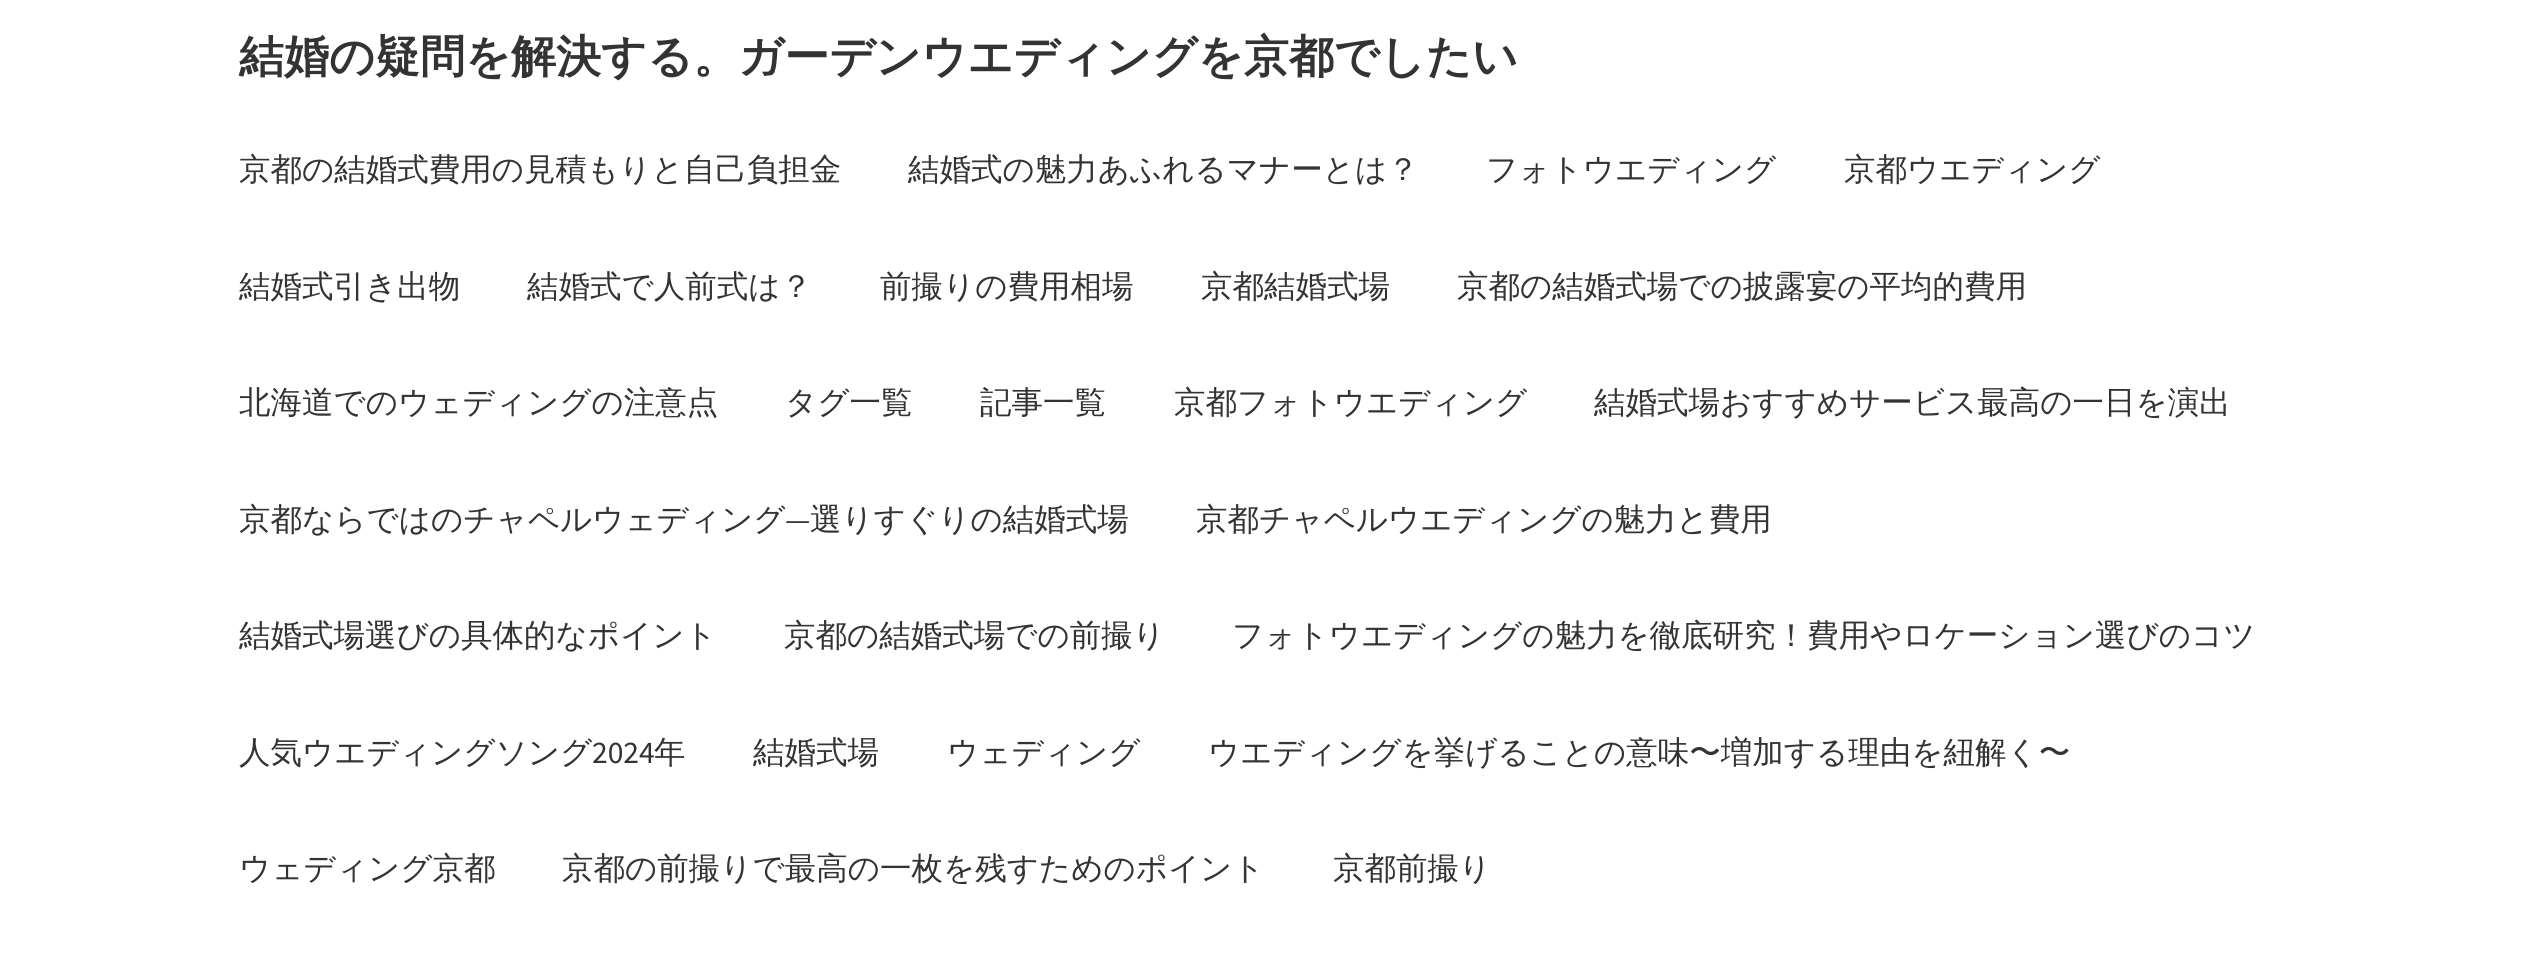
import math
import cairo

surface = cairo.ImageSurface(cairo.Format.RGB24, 2523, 958)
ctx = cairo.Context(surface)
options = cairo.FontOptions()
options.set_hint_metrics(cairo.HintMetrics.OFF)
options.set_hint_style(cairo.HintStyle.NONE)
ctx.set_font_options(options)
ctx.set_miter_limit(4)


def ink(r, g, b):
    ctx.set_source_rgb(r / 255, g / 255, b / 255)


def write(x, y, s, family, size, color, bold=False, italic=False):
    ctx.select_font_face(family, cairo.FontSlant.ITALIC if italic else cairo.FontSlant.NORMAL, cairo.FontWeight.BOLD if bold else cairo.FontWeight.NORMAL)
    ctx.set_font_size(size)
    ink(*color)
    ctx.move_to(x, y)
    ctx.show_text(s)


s1 = dict(family="WenQuanYi Zen Hei", size=45, color=(51, 51, 51), bold=True)
s2 = dict(family="WenQuanYi Zen Hei Medium", size=31.5, color=(51, 51, 51))
s3 = dict(family="Source Sans Pro", size=31.5, color=(51, 51, 51))

ink(255, 255, 255)
ctx.paint()
write(239, 72, "結婚の疑問を解決する。ガーデンウエディングを京都でしたい", **s1)
write(239, 180, "京都の結婚式費用の見積もりと自己負担金", **s2)
write(908, 180, "結婚式の魅力あふれるマナーとは？", **s2)
write(1486, 180, "フォトウエディング", **s2)
write(1844, 180, "京都ウエディング", **s2)
write(239, 297, "結婚式引き出物", **s2)
write(527, 297, "結婚式で人前式は？", **s2)
write(880, 297, "前撮りの費用相場", **s2)
write(1201, 297, "京都結婚式場", **s2)
write(1457, 297, "京都の結婚式場での披露宴の平均的費用", **s2)
write(239, 413, "北海道でのウェディングの注意点", **s2)
write(785, 413, "タグ一覧", **s2)
write(980, 413, "記事一覧", **s2)
write(1174, 413, "京都フォトウエディング", **s2)
write(1594, 413, "結婚式場おすすめサービス最高の一日を演出", **s2)
write(239, 530, "京都ならではのチャペルウェディング", **s2)
write(785, 530, "—", **s3)
write(810, 530, "選りすぐりの結婚式場", **s2)
write(1196, 530, "京都チャペルウエディングの魅力と費用", **s2)
write(239, 646, "結婚式場選びの具体的なポイント", **s2)
write(784, 646, "京都の結婚式場での前撮り", **s2)
write(1232, 646, "フォトウエディングの魅力を徹底研究！費用やロケーション選びのコツ", **s2)
write(239, 763, "人気ウエディングソング", **s2)
write(592, 763, "2024", **s3)
write(654, 763, "年", **s2)
write(753, 763, "結婚式場", **s2)
write(947, 763, "ウェディング", **s2)
write(1208, 763, "ウエディングを挙げることの意味〜増加する理由を紐解く〜", **s2)
write(239, 879, "ウェディング京都", **s2)
write(562, 879, "京都の前撮りで最高の一枚を残すためのポイント", **s2)
write(1333, 879, "京都前撮り", **s2)
surface.write_to_png("screenshot.png")
